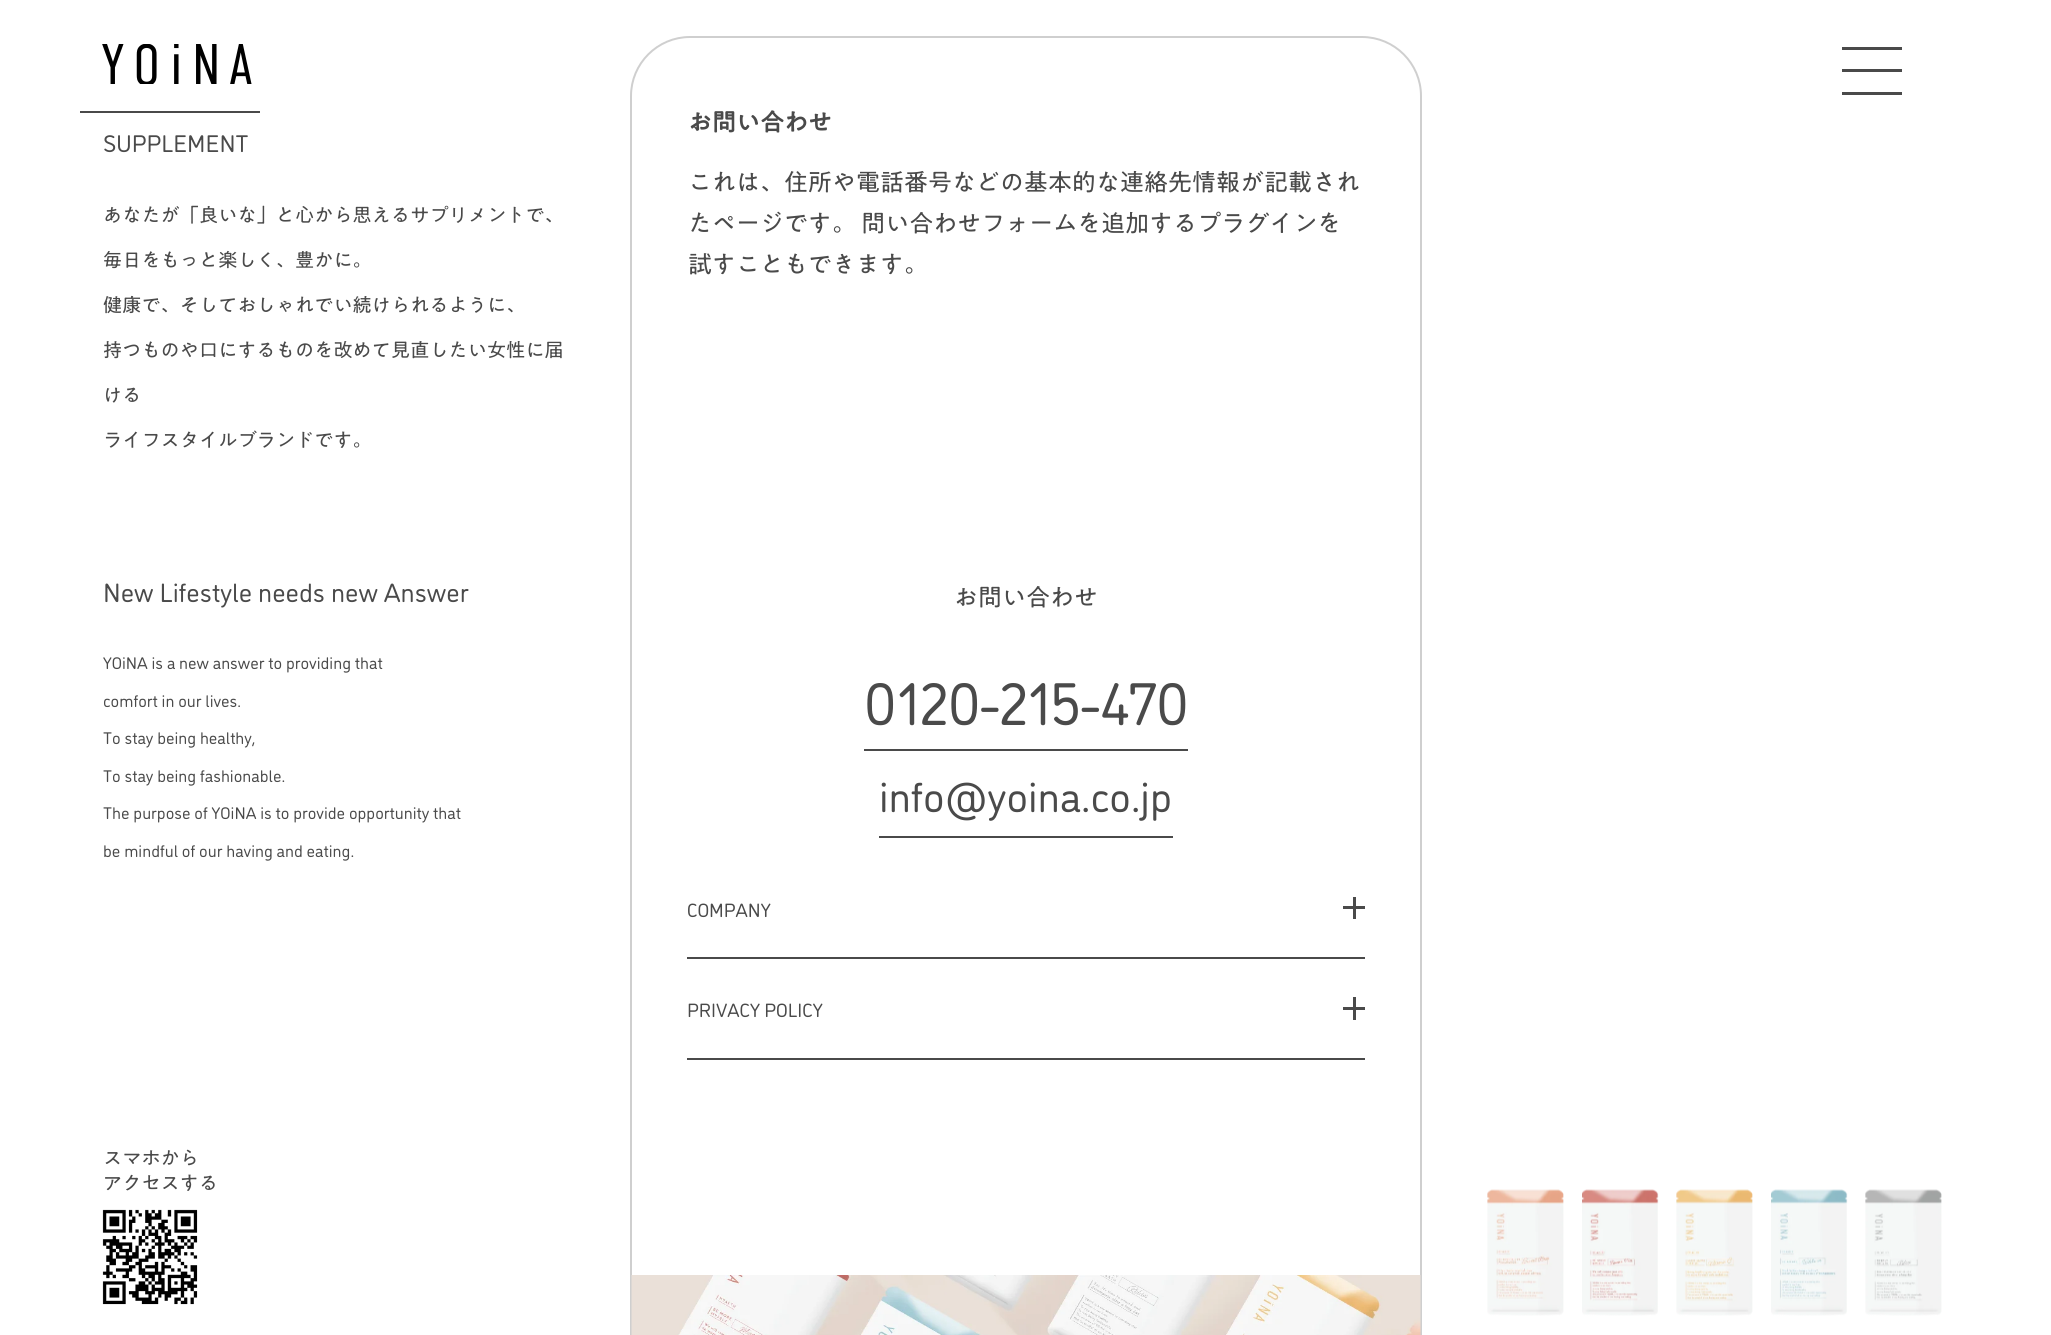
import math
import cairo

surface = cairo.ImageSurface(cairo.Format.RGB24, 2051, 1335)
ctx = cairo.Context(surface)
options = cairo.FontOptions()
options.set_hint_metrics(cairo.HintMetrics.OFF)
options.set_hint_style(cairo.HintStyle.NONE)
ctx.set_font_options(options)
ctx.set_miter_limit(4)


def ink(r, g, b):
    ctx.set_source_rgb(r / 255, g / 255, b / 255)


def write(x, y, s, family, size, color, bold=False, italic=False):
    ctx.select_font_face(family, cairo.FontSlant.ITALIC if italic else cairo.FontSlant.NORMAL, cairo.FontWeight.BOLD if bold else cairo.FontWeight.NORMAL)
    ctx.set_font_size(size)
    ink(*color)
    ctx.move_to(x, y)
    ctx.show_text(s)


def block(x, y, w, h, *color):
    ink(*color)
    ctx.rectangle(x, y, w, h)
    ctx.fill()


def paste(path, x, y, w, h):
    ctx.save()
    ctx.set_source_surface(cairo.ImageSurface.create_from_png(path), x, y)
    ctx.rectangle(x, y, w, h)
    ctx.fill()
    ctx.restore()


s1 = dict(family="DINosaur", size=24, color=(74, 74, 74))
s2 = dict(family="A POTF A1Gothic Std", size=19.2, color=(74, 74, 74))
s3 = dict(family="DINosaur", size=26.4, color=(74, 74, 74))
s4 = dict(family="DINosaur", size=16.8, color=(74, 74, 74))
s5 = dict(family="A POTF A1Gothic Std", size=24, color=(74, 74, 74), bold=True)
s6 = dict(family="A POTF A1Gothic Std", size=24, color=(74, 74, 74))
s7 = dict(family="DINosaur", size=60, color=(74, 74, 74))
s8 = dict(family="DINosaur", size=42, color=(74, 74, 74))
s9 = dict(family="DINosaur", size=19.2, color=(74, 74, 74))

ink(255, 255, 255)
ctx.paint()
paste("pic1.png", 102, 44, 150, 40)
block(80, 111, 180, 2, 74, 74, 74)
write(103, 152, "SUPPLEMENT", **s1)
write(103, 222, "あなたが「良いな」と心から思えるサプリメントで、", **s2)
write(103, 267, "毎日をもっと楽しく、豊かに。", **s2)
write(103, 312, "健康で、そしておしゃれでい続けられるように、", **s2)
write(103, 357, "持つものや口にするものを改めて見直したい女性に届", **s2)
write(103, 402, "ける", **s2)
write(103, 447, "ライフスタイルブランドです。", **s2)
write(103, 602, "New Lifestyle needs new Answer", **s3)
write(103, 669, "YOiNA is a new answer to providing that", **s4)
write(103, 707, "comfort in our lives.", **s4)
write(103, 744, "To stay being healthy,", **s4)
write(103, 782, "To stay being fashionable.", **s4)
write(103, 819, "The purpose of YOiNA is to provide opportunity that", **s4)
write(103, 857, "be mindful of our having and eating.", **s4)
write(103, 1165, "スマホから", **s2)
write(103, 1190, "アクセスする", **s2)
paste("pic2.png", 102, 1209, 96, 96)
ctx.new_path()
ctx.move_to(690, 37)
ctx.line_to(1362, 37)
ctx.curve_to(1394.5, 37, 1421, 63.5, 1421, 96)
ctx.line_to(1421, 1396)
ctx.line_to(631, 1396)
ctx.line_to(631, 96)
ctx.curve_to(631, 63.5, 657.5, 37, 690, 37)
ctx.close_path()
ink(207, 207, 207)
ctx.stroke()
write(688, 131, "お問い合わせ", **s5)
write(688, 191, "これは、住所や電話番号などの基本的な連絡先情報が記載され", **s6)
write(688, 232, "たページです。 問い合わせフォームを追加するプラグインを", **s6)
write(688, 273, "試すこともできます。", **s6)
write(954, 606, "お問い合わせ", **s6)
write(864, 725, "0120-215-470", **s7)
block(864, 749, 324, 2, 74, 74, 74)
write(879, 812, "info@yoina.co.jp", **s8)
block(879, 836, 294, 2, 74, 74, 74)
write(687, 917, "COMPANY", **s9)
block(1343, 906, 22, 3, 74, 74, 74)
block(1353, 897, 3, 22, 74, 74, 74)
block(687, 957, 678, 2, 74, 74, 74)
write(687, 1017, "PRIVACY POLICY", **s9)
block(1343, 1007, 22, 3, 74, 74, 74)
block(1353, 997, 3, 23, 74, 74, 74)
block(687, 1058, 678, 2, 74, 74, 74)
paste("pic3.png", 631, 1275, 790, 60)
block(1842, 47, 60, 3, 74, 74, 74)
block(1842, 69, 60, 3, 74, 74, 74)
block(1842, 92, 60, 3, 74, 74, 74)
paste("pic4.png", 1487, 1189, 77, 127)
paste("pic5.png", 1582, 1189, 77, 127)
paste("pic6.png", 1676, 1189, 77, 127)
paste("pic7.png", 1771, 1189, 77, 127)
paste("pic8.png", 1865, 1189, 77, 127)
surface.write_to_png("screenshot.png")
